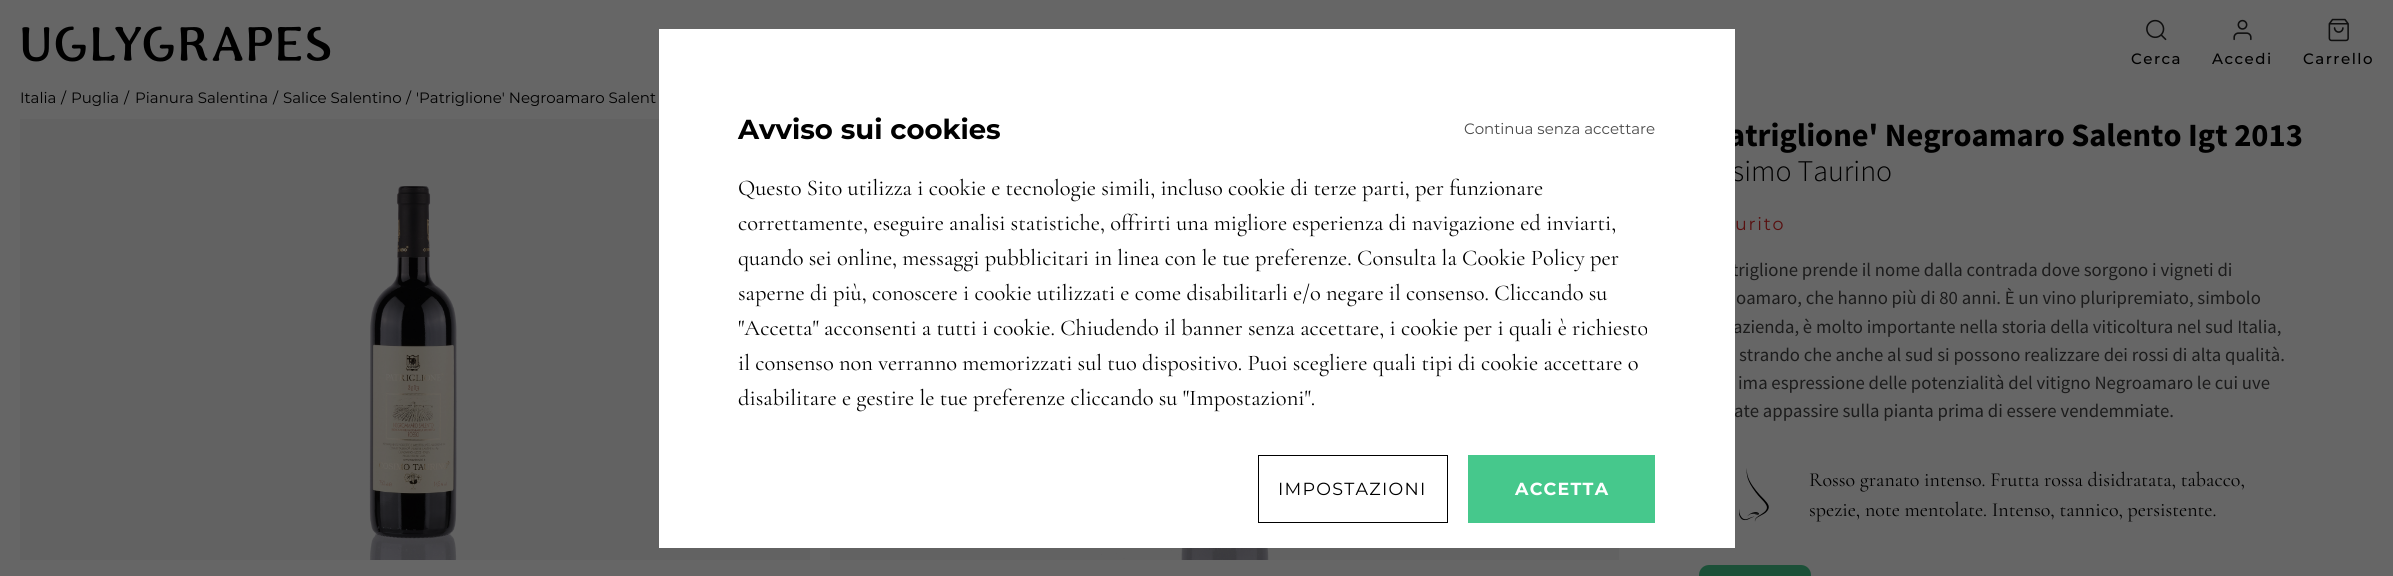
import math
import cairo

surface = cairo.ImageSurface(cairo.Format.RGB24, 2393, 576)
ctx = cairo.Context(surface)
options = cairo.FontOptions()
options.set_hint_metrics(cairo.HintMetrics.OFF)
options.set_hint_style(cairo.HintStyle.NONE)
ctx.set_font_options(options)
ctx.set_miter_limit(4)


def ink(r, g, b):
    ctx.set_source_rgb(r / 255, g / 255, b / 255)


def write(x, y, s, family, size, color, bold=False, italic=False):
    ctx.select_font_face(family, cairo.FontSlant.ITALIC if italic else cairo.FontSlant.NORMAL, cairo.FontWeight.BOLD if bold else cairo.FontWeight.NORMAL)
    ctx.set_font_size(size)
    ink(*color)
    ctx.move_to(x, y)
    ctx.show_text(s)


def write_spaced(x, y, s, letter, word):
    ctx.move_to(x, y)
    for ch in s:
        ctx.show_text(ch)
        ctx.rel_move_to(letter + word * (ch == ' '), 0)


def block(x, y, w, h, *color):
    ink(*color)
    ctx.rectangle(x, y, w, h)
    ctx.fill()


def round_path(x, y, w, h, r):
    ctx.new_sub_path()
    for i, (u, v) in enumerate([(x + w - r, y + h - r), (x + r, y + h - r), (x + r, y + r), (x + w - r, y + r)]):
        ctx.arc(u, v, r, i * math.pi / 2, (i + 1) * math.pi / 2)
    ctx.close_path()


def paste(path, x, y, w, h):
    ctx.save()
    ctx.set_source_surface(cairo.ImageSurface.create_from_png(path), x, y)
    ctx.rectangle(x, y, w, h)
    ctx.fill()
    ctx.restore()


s1 = dict(family="Montserrat", size=15, color=(0, 0, 0))
s2 = dict(family="Source Sans Pro", size=32.5, color=(0, 0, 0), bold=True)
s3 = dict(family="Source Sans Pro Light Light", size=30, color=(0, 0, 0))
s4 = dict(family="Source Sans Pro", size=18.75, color=(28, 28, 28))
s5 = dict(family="Cormorant Garamond", size=20, color=(0, 0, 0))
s6 = dict(family="Montserrat", size=27.5, color=(0, 0, 0), bold=True)
s7 = dict(family="Montserrat", size=15, color=(74, 74, 74))
s8 = dict(family="Cormorant Garamond", size=22.5, color=(0, 0, 0))

ink(102, 102, 102)
ctx.paint()
paste("pic1.png", 22, 26, 309, 36)
paste("pic2.png", 2146, 19, 21, 22)
ctx.select_font_face("Montserrat Medium")
ctx.set_font_size(15)
ink(0, 0, 0)
write_spaced(2131, 64, "Cerca", 1.5, 0)
paste("pic3.png", 2233, 19, 19, 22)
write_spaced(2212, 64, "Accedi", 1.5, 0)
paste("pic4.png", 2328, 18, 21, 24)
write_spaced(2303, 64, "Carrello", 1.5, 0)
write(20, 103, "Italia", **s1)
write(61, 103, "/", **s1)
write(71, 103, "Puglia", **s1)
write(124, 103, "/", **s1)
write(135, 103, "Pianura Salentina", **s1)
write(273, 103, "/", **s1)
write(283, 103, "Salice Salentino", **s1)
write(406, 103, "/", **s1)
write(416, 103, "'Patriglione' Negroamaro Salent", **s1)
block(20, 119, 790, 441, 98, 98, 98)
paste("pic5.png", 369, 186, 88, 374)
block(830, 548, 789, 12, 98, 98, 98)
paste("pic6.png", 1101, 548, 168, 12)
write(1728, 146, "atriglione' Negroamaro Salento Igt 2013", **s2)
write(1732, 181, "simo Taurino", **s3)
ctx.select_font_face("Montserrat")
ctx.set_font_size(17.5)
ink(88, 15, 15)
write_spaced(1735, 230, "urito", 1.75, 0)
write(1732, 276, "triglione prende il nome dalla contrada dove sorgono i vigneti di", **s4)
write(1736, 304, "oamaro, che hanno più di 80 anni. È un vino pluripremiato, simbolo", **s4)
write(1733, 333, "azienda, è molto importante nella storia della viticoltura nel sud Italia,", **s4)
write(1739, 361, "strando che anche al sud si possono realizzare dei rossi di alta qualità.", **s4)
write(1738, 389, "ima espressione delle potenzialità del vitigno Negroamaro le cui uve", **s4)
write(1734, 417, "ate appassire sulla pianta prima di essere vendemmiate.", **s4)
paste("pic7.png", 1739, 468, 30, 54)
write(1809, 486, "Rosso granato intenso. Frutta rossa disidratata, tabacco,", **s5)
write(1809, 516, "spezie, note mentolate. Intenso, tannico, persistente.", **s5)
ink(28, 80, 56)
round_path(1699, 565, 112, 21, 10)
ctx.fill()
block(659, 29, 1076, 519, 255, 255, 255)
write(738, 139, "Avviso sui cookies", **s6)
write(1464, 134, "Continua senza accettare", **s7)
write(738, 195, "Questo Sito utilizza i cookie e tecnologie simili, incluso cookie di terze parti, per funzionare", **s8)
write(738, 230, "correttamente, eseguire analisi statistiche, offrirti una migliore esperienza di navigazione ed inviarti,", **s8)
write(738, 265, "quando sei online, messaggi pubblicitari in linea con le tue preferenze. Consulta la Cookie Policy per", **s8)
write(738, 300, "saperne di più, conoscere i cookie utilizzati e come disabilitarli e/o negare il consenso. Cliccando su", **s8)
write(738, 335, "\"Accetta\" acconsenti a tutti i cookie. Chiudendo il banner senza accettare, i cookie per i quali è richiesto", **s8)
write(738, 370, "il consenso non verranno memorizzati sul tuo dispositivo. Puoi scegliere quali tipi di cookie accettare o", **s8)
write(738, 405, "disabilitare e gestire le tue preferenze cliccando su \"Impostazioni\".", **s8)
ctx.rectangle(1258.5, 455.5, 189, 67)
ctx.set_line_width(1)
ctx.stroke()
ctx.select_font_face("Montserrat")
ctx.set_font_size(17.5)
write_spaced(1278, 495, "IMPOSTAZIONI", 1.25, 0)
block(1468, 455, 187, 68, 70, 200, 140)
ctx.select_font_face("Montserrat", cairo.FontSlant.NORMAL, cairo.FontWeight.BOLD)
ink(255, 255, 255)
write_spaced(1515, 495, "ACCETTA", 1.25, 0)
surface.write_to_png("screenshot.png")
